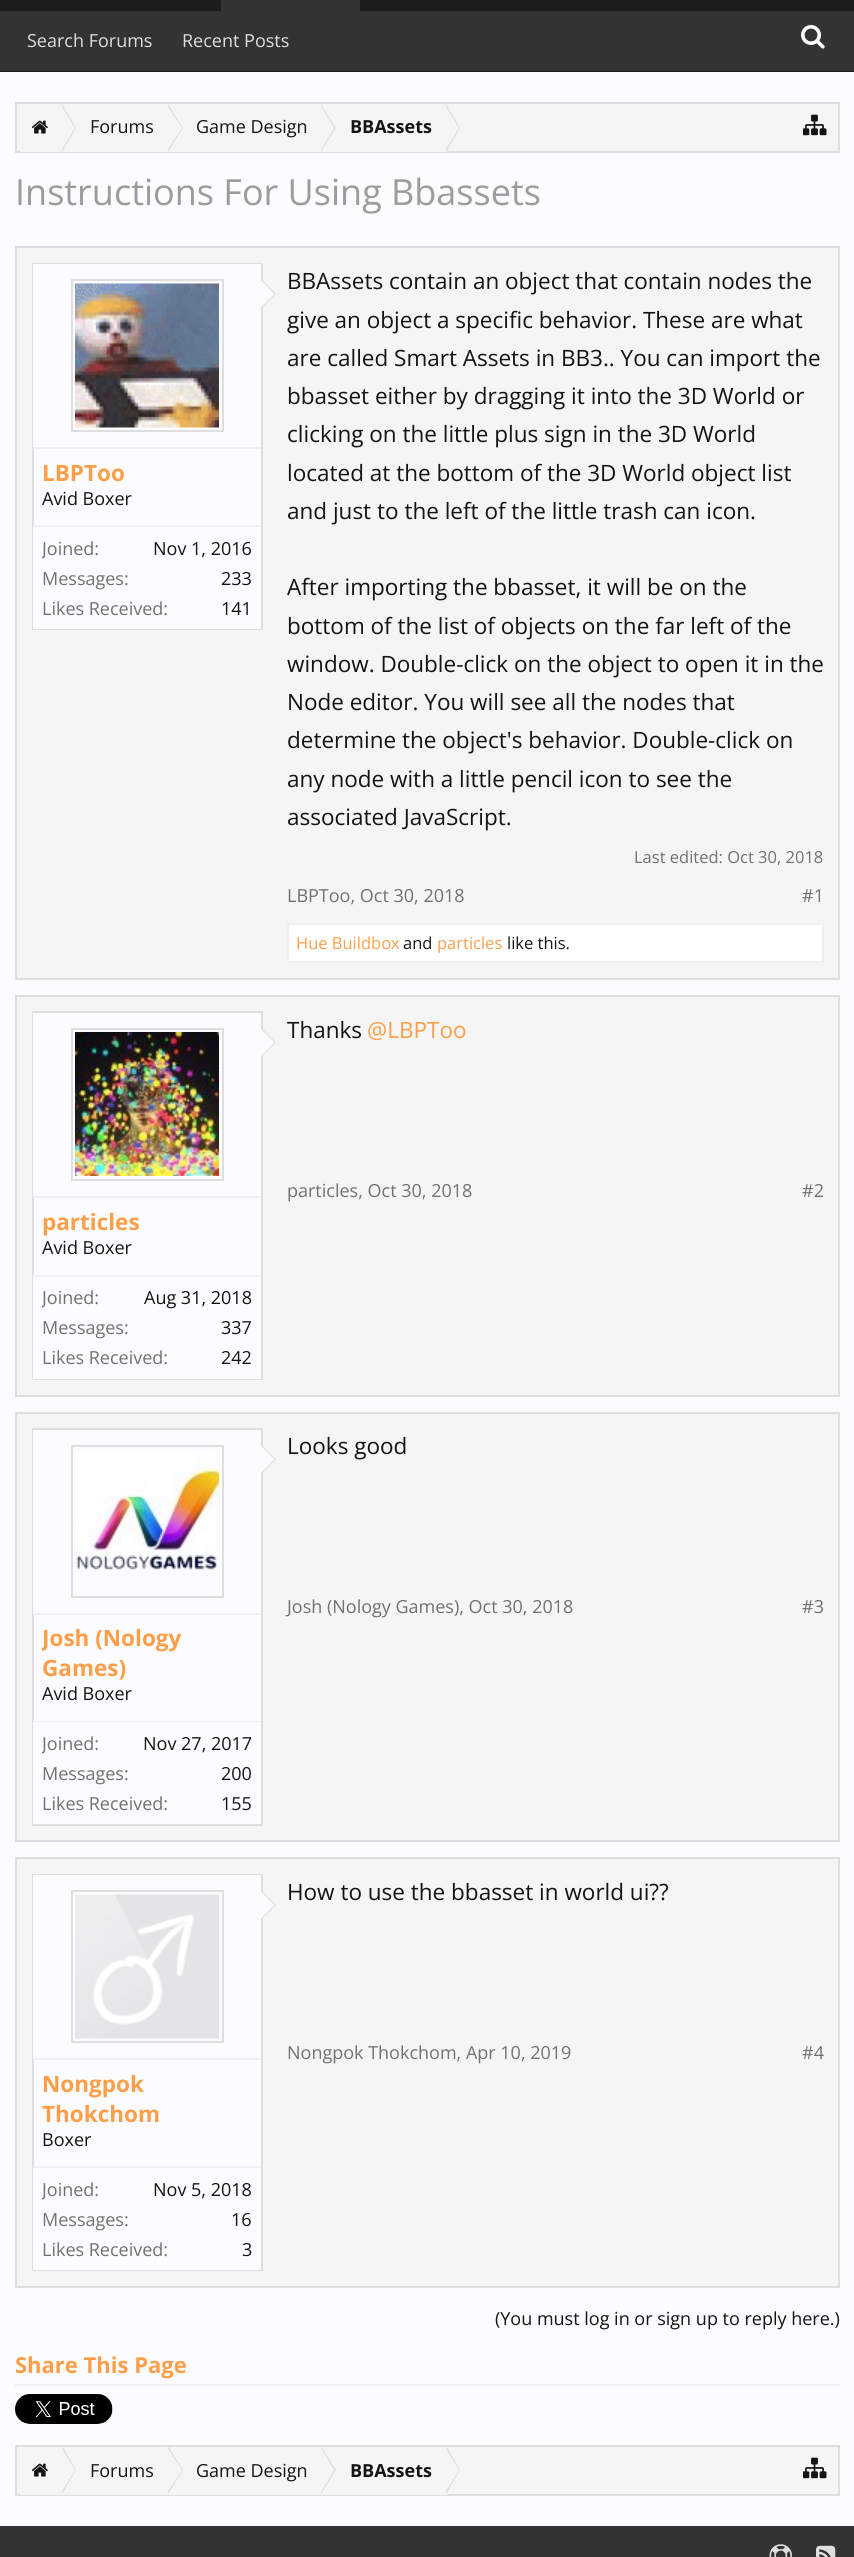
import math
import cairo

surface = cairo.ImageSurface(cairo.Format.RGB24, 854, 2557)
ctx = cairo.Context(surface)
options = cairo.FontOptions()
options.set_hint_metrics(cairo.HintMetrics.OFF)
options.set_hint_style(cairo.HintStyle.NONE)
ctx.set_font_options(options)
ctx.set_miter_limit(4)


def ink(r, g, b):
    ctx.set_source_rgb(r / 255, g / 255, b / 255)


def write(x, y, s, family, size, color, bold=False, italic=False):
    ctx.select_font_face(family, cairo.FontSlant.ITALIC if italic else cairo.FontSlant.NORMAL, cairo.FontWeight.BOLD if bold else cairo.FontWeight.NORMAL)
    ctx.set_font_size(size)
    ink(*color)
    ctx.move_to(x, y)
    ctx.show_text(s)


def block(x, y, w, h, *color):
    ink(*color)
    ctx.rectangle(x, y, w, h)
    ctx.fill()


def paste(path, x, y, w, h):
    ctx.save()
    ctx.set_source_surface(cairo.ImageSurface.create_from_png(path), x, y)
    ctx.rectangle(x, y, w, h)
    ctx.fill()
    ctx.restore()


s1 = dict(family="Open Sans", size=18, color=(222, 222, 222))
s2 = dict(family="Open Sans", size=18, color=(20, 20, 20))
s3 = dict(family="Open Sans", size=18, color=(20, 20, 20), bold=True)
s4 = dict(family="Open Sans", size=36, color=(156, 156, 156))
s5 = dict(family="Open Sans", size=22.5, color=(253, 158, 73), bold=True)
s6 = dict(family="Open Sans", size=18, color=(113, 113, 113))
s7 = dict(family="Open Sans", size=22.5, color=(20, 20, 20))
s8 = dict(family="Open Sans", size=16.5, color=(113, 113, 113))
s9 = dict(family="Open Sans", size=16.5, color=(253, 158, 73))
s10 = dict(family="Open Sans", size=16.5, color=(20, 20, 20))
s11 = dict(family="Open Sans", size=22.5, color=(253, 158, 73))
s12 = dict(family="Open Sans", size=22, color=(253, 158, 73), bold=True)

ink(28, 28, 28)
ctx.paint()
block(221, 0, 139, 11, 51, 51, 51)
block(0, 11, 854, 60, 51, 51, 51)
write(27, 47, "Search Forums", **s1)
write(182, 47, "Recent Posts", **s1)
paste("pic1.png", 801, 25, 24, 24)
block(0, 72, 854, 2454, 252, 252, 255)
ink(245, 245, 245)
ctx.rectangle(16, 103, 823, 49)
ctx.fill_preserve()
ink(222, 222, 222)
ctx.stroke()
ctx.save()
ctx.rectangle(17, 104, 822, 48)
ctx.clip()
ink(245, 245, 245)
ctx.new_path()
ctx.move_to(25, 104)
ctx.line_to(63, 104)
ctx.line_to(63, 153)
ctx.line_to(25, 153)
ctx.curve_to(20.5, 153, 17, 149.5, 17, 145)
ctx.line_to(17, 112)
ctx.curve_to(17, 107.5, 20.5, 104, 25, 104)
ctx.close_path()
ctx.fill()
ctx.restore()
paste("pic2.png", 32, 120, 16, 14)
block(63, 151, 384, 1, 245, 245, 245)
ink(222, 222, 222)
ctx.new_path()
ctx.move_to(62, 152)
ctx.line_to(62, 104)
ctx.line_to(76, 128)
ctx.close_path()
ctx.fill()
ink(245, 245, 245)
ctx.new_path()
ctx.move_to(60, 152)
ctx.line_to(60, 104)
ctx.line_to(75, 128)
ctx.close_path()
ctx.fill()
write(90, 133, "Forums", **s2)
ink(222, 222, 222)
ctx.new_path()
ctx.move_to(168, 152)
ctx.line_to(168, 104)
ctx.line_to(183, 128)
ctx.close_path()
ctx.fill()
ink(245, 245, 245)
ctx.new_path()
ctx.move_to(166, 152)
ctx.line_to(166, 104)
ctx.line_to(182, 128)
ctx.close_path()
ctx.fill()
write(196, 133, "Game Design", **s2)
ink(222, 222, 222)
ctx.new_path()
ctx.move_to(321, 152)
ctx.line_to(321, 104)
ctx.line_to(336, 128)
ctx.close_path()
ctx.fill()
ink(245, 245, 245)
ctx.new_path()
ctx.move_to(320, 152)
ctx.line_to(320, 104)
ctx.line_to(334, 128)
ctx.close_path()
ctx.fill()
write(350, 133, "BBAssets", **s3)
ink(222, 222, 222)
ctx.new_path()
ctx.move_to(446, 152)
ctx.line_to(446, 104)
ctx.line_to(460, 128)
ctx.close_path()
ctx.fill()
ink(245, 245, 245)
ctx.new_path()
ctx.move_to(444, 152)
ctx.line_to(444, 104)
ctx.line_to(459, 128)
ctx.close_path()
ctx.fill()
paste("pic3.png", 803, 114, 24, 22)
write(15, 205, "Instructions For Using Bbassets", **s4)
ink(245, 245, 245)
ctx.rectangle(16, 247, 823, 732)
ctx.fill_preserve()
ink(222, 222, 222)
ctx.stroke()
block(34, 449, 227, 76, 252, 252, 255)
ctx.rectangle(33, 264, 229, 365)
ink(222, 222, 222)
ctx.stroke()
block(33, 264, 228, 183, 252, 252, 255)
ctx.rectangle(72, 280, 151, 151)
ink(222, 222, 222)
ctx.stroke()
paste("pic4.png", 75, 283, 144, 145)
ctx.new_path()
ctx.move_to(261, 309)
ctx.line_to(261, 279)
ctx.line_to(276, 294)
ctx.close_path()
ctx.fill()
ink(252, 252, 255)
ctx.new_path()
ctx.move_to(259.5, 309)
ctx.line_to(259.5, 279)
ctx.line_to(274.5, 294)
ctx.close_path()
ctx.fill()
block(33, 447, 228, 2, 238, 240, 244)
block(33, 525, 228, 2, 238, 240, 244)
write(42, 481, "LBPToo", **s5)
write(42, 505, "Avid Boxer", **s2)
block(33, 527, 228, 102, 252, 252, 255)
ctx.save()
ctx.rectangle(42, 536, 210, 27)
ctx.clip()
write(42, 555, "Joined:", **s6)
ctx.restore()
write(153, 555, "Nov 1, 2016", **s2)
write(42, 585, "Messages:", **s6)
write(221, 585, "233", **s2)
write(42, 615, "Likes Received:", **s6)
write(221, 615, "141", **s2)
write(287, 289, "BBAssets contain an object that contain nodes the", **s7)
write(287, 328, "give an object a specific behavior. These are what", **s7)
write(287, 366, "are called Smart Assets in BB3.. You can import the", **s7)
write(287, 404, "bbasset either by dragging it into the 3D World or", **s7)
write(287, 442, "clicking on the little plus sign in the 3D World", **s7)
write(287, 481, "located at the bottom of the 3D World object list", **s7)
write(287, 519, "and just to the left of the little trash can icon.", **s7)
write(287, 595, "After importing the bbasset, it will be on the", **s7)
write(287, 634, "bottom of the list of objects on the far left of the", **s7)
write(287, 672, "window. Double-click on the object to open it in the", **s7)
write(287, 710, "Node editor. You will see all the nodes that", **s7)
write(287, 748, "determine the object's behavior. Double-click on", **s7)
write(287, 787, "any node with a little pencil icon to see the", **s7)
write(287, 825, "associated JavaScript.", **s7)
write(634, 863, "Last edited: Oct 30, 2018", **s8)
write(287, 902, "LBPToo, Oct 30, 2018", **s6)
write(802, 902, "#1", **s6)
ink(255, 255, 255)
ctx.rectangle(288, 924, 535, 38)
ctx.fill_preserve()
ink(239, 239, 239)
ctx.stroke()
write(296, 949, "Hue Buildbox", **s9)
write(403, 949, "and", **s10)
write(437, 949, "particles", **s9)
write(507, 949, "like this.", **s10)
ink(245, 245, 245)
ctx.rectangle(16, 996, 823, 400)
ctx.fill_preserve()
ink(222, 222, 222)
ctx.stroke()
write(287, 1038, "Thanks", **s7)
write(367, 1038, "@LBPToo", **s11)
write(287, 1197, "particles, Oct 30, 2018", **s6)
write(802, 1197, "#2", **s6)
block(34, 1198, 227, 77, 252, 252, 255)
ctx.rectangle(33, 1012, 229, 367)
ink(222, 222, 222)
ctx.stroke()
block(33, 1013, 228, 183, 252, 252, 255)
ctx.rectangle(72, 1029, 151, 151)
ink(222, 222, 222)
ctx.stroke()
paste("pic5.png", 75, 1032, 144, 144)
ctx.new_path()
ctx.move_to(261, 1057.5)
ctx.line_to(261, 1027.5)
ctx.line_to(276, 1042.5)
ctx.close_path()
ctx.fill()
ink(252, 252, 255)
ctx.new_path()
ctx.move_to(259.5, 1057.5)
ctx.line_to(259.5, 1027.5)
ctx.line_to(274.5, 1042.5)
ctx.close_path()
ctx.fill()
block(33, 1196, 228, 2, 238, 240, 244)
block(33, 1275, 228, 2, 238, 240, 244)
write(42, 1230, "particles", **s5)
write(42, 1254, "Avid Boxer", **s2)
block(33, 1277, 228, 102, 252, 252, 255)
ctx.save()
ctx.rectangle(42, 1286, 210, 27)
ctx.clip()
write(42, 1304, "Joined:", **s6)
ctx.restore()
write(144, 1304, "Aug 31, 2018", **s2)
write(42, 1334, "Messages:", **s6)
write(221, 1334, "337", **s2)
write(42, 1364, "Likes Received:", **s6)
write(221, 1364, "242", **s2)
ink(245, 245, 245)
ctx.rectangle(16, 1413, 823, 428)
ctx.fill_preserve()
ink(222, 222, 222)
ctx.stroke()
write(287, 1454, "Looks good", **s7)
write(287, 1613, "Josh (Nology Games), Oct 30, 2018", **s6)
write(802, 1613, "#3", **s6)
block(34, 1615, 227, 106, 252, 252, 255)
ctx.rectangle(33, 1429, 229, 396)
ink(222, 222, 222)
ctx.stroke()
block(33, 1430, 228, 183, 252, 252, 255)
ctx.rectangle(72, 1446, 151, 151)
ink(222, 222, 222)
ctx.stroke()
paste("pic6.png", 75, 1453, 144, 117)
ctx.new_path()
ctx.move_to(261, 1474.5)
ctx.line_to(261, 1444.5)
ctx.line_to(276, 1459.5)
ctx.close_path()
ctx.fill()
ink(252, 252, 255)
ctx.new_path()
ctx.move_to(259.5, 1474.5)
ctx.line_to(259.5, 1444.5)
ctx.line_to(274.5, 1459.5)
ctx.close_path()
ctx.fill()
block(33, 1613, 228, 2, 238, 240, 244)
block(33, 1721, 228, 1, 238, 240, 244)
ctx.save()
ctx.rectangle(42, 1623, 210, 60)
ctx.clip()
write(42, 1646, "Josh (Nology", **s5)
ctx.restore()
write(42, 1676, "Games)", **s5)
write(42, 1700, "Avid Boxer", **s2)
block(33, 1722, 228, 102, 252, 252, 255)
ctx.save()
ctx.rectangle(42, 1731, 210, 27)
ctx.clip()
write(42, 1750, "Joined:", **s6)
ctx.restore()
write(143, 1750, "Nov 27, 2017", **s2)
write(42, 1780, "Messages:", **s6)
write(221, 1780, "200", **s2)
write(42, 1810, "Likes Received:", **s6)
write(221, 1810, "155", **s2)
ink(245, 245, 245)
ctx.rectangle(16, 1858, 823, 429)
ctx.fill_preserve()
ink(222, 222, 222)
ctx.stroke()
write(287, 1900, "How to use the bbasset in world ui??", **s7)
write(287, 2059, "Nongpok Thokchom, Apr 10, 2019", **s6)
write(802, 2059, "#4", **s6)
block(34, 2060, 227, 106, 252, 252, 255)
ctx.rectangle(33, 1875, 229, 395)
ink(222, 222, 222)
ctx.stroke()
block(33, 1875, 228, 183, 252, 252, 255)
ctx.rectangle(72, 1891, 151, 151)
ink(222, 222, 222)
ctx.stroke()
paste("pic7.png", 75, 1894, 144, 145)
ctx.new_path()
ctx.move_to(261, 1920)
ctx.line_to(261, 1890)
ctx.line_to(276, 1905)
ctx.close_path()
ctx.fill()
ink(252, 252, 255)
ctx.new_path()
ctx.move_to(259.5, 1920)
ctx.line_to(259.5, 1890)
ctx.line_to(274.5, 1905)
ctx.close_path()
ctx.fill()
block(33, 2058, 228, 2, 238, 240, 244)
block(33, 2166, 228, 2, 238, 240, 244)
write(42, 2092, "Nongpok", **s5)
write(42, 2122, "Thokchom", **s5)
write(42, 2146, "Boxer", **s2)
block(33, 2168, 228, 102, 252, 252, 255)
ctx.save()
ctx.rectangle(42, 2177, 210, 27)
ctx.clip()
write(42, 2196, "Joined:", **s6)
ctx.restore()
write(153, 2196, "Nov 5, 2018", **s2)
write(42, 2226, "Messages:", **s6)
write(231, 2226, "16", **s2)
write(42, 2256, "Likes Received:", **s6)
write(242, 2256, "3", **s2)
write(495, 2325, "(You must log in or sign up to reply here.)", **s2)
block(15, 2384, 825, 2, 239, 239, 239)
write(15, 2373, "Share This Page", **s12)
paste("pic8.png", 15, 2394, 98, 30)
ink(245, 245, 245)
ctx.rectangle(16, 2446, 823, 49)
ctx.fill_preserve()
ink(222, 222, 222)
ctx.stroke()
ctx.save()
ctx.rectangle(17, 2447, 822, 48)
ctx.clip()
ink(245, 245, 245)
ctx.new_path()
ctx.move_to(25, 2447)
ctx.line_to(63, 2447)
ctx.line_to(63, 2496)
ctx.line_to(25, 2496)
ctx.curve_to(20.5, 2496, 17, 2492.5, 17, 2488)
ctx.line_to(17, 2455)
ctx.curve_to(17, 2450.5, 20.5, 2447, 25, 2447)
ctx.close_path()
ctx.fill()
ctx.restore()
paste("pic2.png", 32, 2463, 16, 14)
ctx.new_path()
ctx.move_to(62, 2494)
ctx.line_to(62, 2446)
ctx.line_to(76, 2470)
ctx.close_path()
ctx.fill()
ink(245, 245, 245)
ctx.new_path()
ctx.move_to(60, 2494)
ctx.line_to(60, 2446)
ctx.line_to(75, 2470)
ctx.close_path()
ctx.fill()
block(63, 2494, 384, 1, 245, 245, 245)
write(90, 2477, "Forums", **s2)
ink(222, 222, 222)
ctx.new_path()
ctx.move_to(168, 2494)
ctx.line_to(168, 2446)
ctx.line_to(183, 2470)
ctx.close_path()
ctx.fill()
ink(245, 245, 245)
ctx.new_path()
ctx.move_to(166, 2494)
ctx.line_to(166, 2446)
ctx.line_to(182, 2470)
ctx.close_path()
ctx.fill()
write(196, 2477, "Game Design", **s2)
ink(222, 222, 222)
ctx.new_path()
ctx.move_to(321, 2494)
ctx.line_to(321, 2446)
ctx.line_to(336, 2470)
ctx.close_path()
ctx.fill()
ink(245, 245, 245)
ctx.new_path()
ctx.move_to(320, 2494)
ctx.line_to(320, 2446)
ctx.line_to(334, 2470)
ctx.close_path()
ctx.fill()
write(350, 2477, "BBAssets", **s3)
ink(222, 222, 222)
ctx.new_path()
ctx.move_to(446, 2494)
ctx.line_to(446, 2446)
ctx.line_to(460, 2470)
ctx.close_path()
ctx.fill()
ink(245, 245, 245)
ctx.new_path()
ctx.move_to(444, 2494)
ctx.line_to(444, 2446)
ctx.line_to(459, 2470)
ctx.close_path()
ctx.fill()
paste("pic3.png", 803, 2457, 24, 22)
block(0, 2526, 854, 31, 51, 51, 51)
paste("pic9.png", 769, 2544, 23, 13)
paste("pic10.png", 816, 2545, 20, 12)
surface.write_to_png("screenshot.png")
